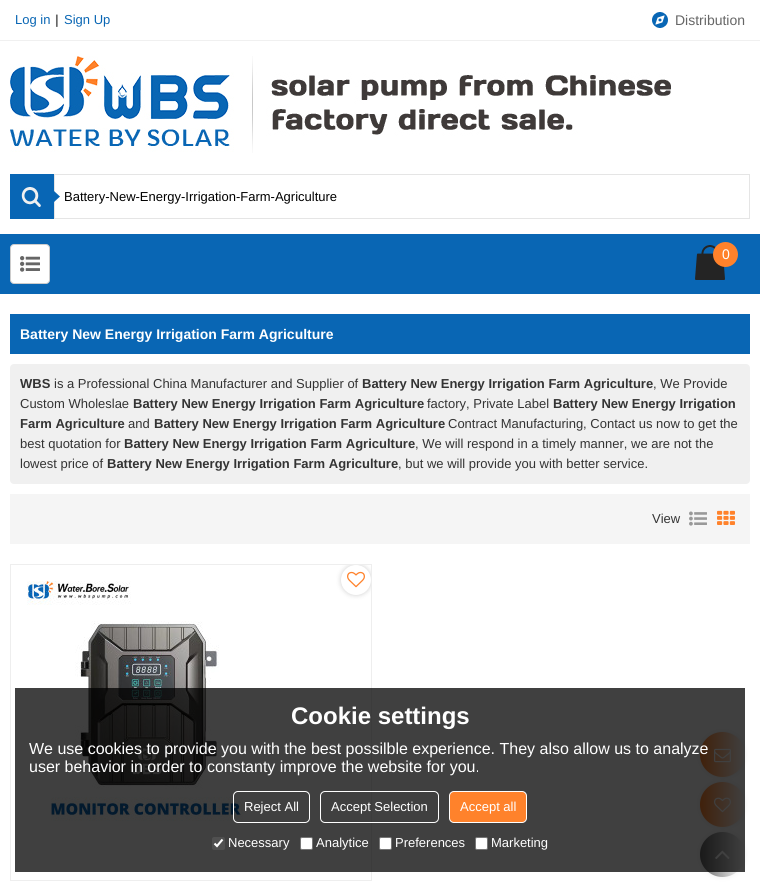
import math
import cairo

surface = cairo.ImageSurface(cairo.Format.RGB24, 760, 887)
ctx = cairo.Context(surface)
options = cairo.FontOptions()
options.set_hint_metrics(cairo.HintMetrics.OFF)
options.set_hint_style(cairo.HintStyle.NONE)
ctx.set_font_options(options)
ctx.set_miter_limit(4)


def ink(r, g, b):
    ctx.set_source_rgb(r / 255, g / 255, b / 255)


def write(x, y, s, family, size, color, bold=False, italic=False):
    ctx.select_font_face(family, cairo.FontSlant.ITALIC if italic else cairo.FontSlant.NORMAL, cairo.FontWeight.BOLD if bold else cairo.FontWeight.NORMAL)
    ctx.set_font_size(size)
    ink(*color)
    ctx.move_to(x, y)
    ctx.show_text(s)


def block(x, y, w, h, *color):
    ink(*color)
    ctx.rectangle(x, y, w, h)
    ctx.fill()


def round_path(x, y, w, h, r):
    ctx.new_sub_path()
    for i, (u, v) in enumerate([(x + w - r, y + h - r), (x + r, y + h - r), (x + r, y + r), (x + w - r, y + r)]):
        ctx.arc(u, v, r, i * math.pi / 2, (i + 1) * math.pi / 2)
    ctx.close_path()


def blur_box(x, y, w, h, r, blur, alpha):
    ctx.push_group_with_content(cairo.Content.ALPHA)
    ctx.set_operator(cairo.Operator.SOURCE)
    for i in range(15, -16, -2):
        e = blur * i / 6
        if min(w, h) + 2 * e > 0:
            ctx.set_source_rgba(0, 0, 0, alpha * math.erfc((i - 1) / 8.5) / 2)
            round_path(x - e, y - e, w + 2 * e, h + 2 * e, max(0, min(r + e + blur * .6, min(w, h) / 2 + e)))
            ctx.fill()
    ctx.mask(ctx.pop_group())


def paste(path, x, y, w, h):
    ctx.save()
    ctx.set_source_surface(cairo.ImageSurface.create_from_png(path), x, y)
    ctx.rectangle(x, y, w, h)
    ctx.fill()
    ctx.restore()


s1 = dict(family="Liberation Sans", size=13, color=(9, 102, 180))
s2 = dict(family="Liberation Sans", size=13, color=(102, 102, 102), bold=True)
s3 = dict(family="Liberation Sans", size=14, color=(102, 102, 102))
s4 = dict(family="Liberation Sans", size=13, color=(0, 0, 0))
s5 = dict(family="Liberation Sans", size=14, color=(255, 255, 255))
s6 = dict(family="Liberation Sans", size=14, color=(255, 255, 255), bold=True)
s7 = dict(family="Liberation Sans", size=13, color=(51, 51, 51), bold=True)
s8 = dict(family="Liberation Sans", size=13, color=(51, 51, 51))
s9 = dict(family="Liberation Sans", size=24, color=(255, 255, 255), bold=True)
s10 = dict(family="Liberation Sans", size=16, color=(255, 255, 255))
s11 = dict(family="Liberation Sans", size=13, color=(255, 255, 255))

ink(255, 255, 255)
ctx.paint()
block(0, 40, 760, 1, 240, 240, 240)
write(15, 24, "Log in", **s1)
write(55, 24, "|", **s2)
write(64, 24, "Sign Up", **s1)
paste("pic1.png", 652, 12, 16, 16)
write(675, 25, "Distribution", **s3)
paste("pic2.png", 10, 56, 661, 97)
ctx.rectangle(54.5, 174.5, 695, 44)
ink(229, 229, 229)
ctx.set_line_width(1)
ctx.stroke()
paste("pic3.png", 10, 174, 50, 45)
write(64, 201, "Battery-New-Energy-Irrigation-Farm-Agriculture", **s4)
block(0, 234, 760, 60, 9, 102, 180)
paste("pic4.png", 695, 245, 30, 35)
ink(255, 130, 43)
ctx.arc(725.5, 254.5, 12.5, 0, 2 * math.pi)
ctx.fill()
write(722, 259, "0", **s5)
round_path(10.5, 244.5, 39, 39, 3.5)
ctx.fill_preserve()
ink(204, 204, 204)
ctx.stroke()
paste("pic5.png", 20, 256, 20, 16)
block(10, 314, 740, 40, 9, 102, 180)
write(20, 339, "Battery New Energy Irrigation Farm Agriculture", **s6)
ink(240, 240, 240)
round_path(10, 364, 740, 120, 4)
ctx.fill()
write(20, 388, "WBS", **s7)
write(54, 388, "is a Professional China Manufacturer and Supplier of", **s8)
write(362, 388, "Battery New Energy Irrigation Farm Agriculture", **s7)
write(653, 388, ", We Provide", **s8)
write(20, 408, "Custom Wholeslae", **s8)
write(133, 408, "Battery New Energy Irrigation Farm Agriculture", **s7)
write(427, 408, "factory, Private Label", **s8)
write(553, 408, "Battery New Energy Irrigation", **s7)
write(20, 428, "Farm Agriculture", **s7)
write(128, 428, "and", **s8)
write(154, 428, "Battery New Energy Irrigation Farm Agriculture", **s7)
write(448, 428, "Contract Manufacturing, Contact us now to get the", **s8)
write(20, 448, "best quotation for", **s8)
write(124, 448, "Battery New Energy Irrigation Farm Agriculture", **s7)
write(415, 448, ", We will respond in a timely manner, we are not the", **s8)
write(20, 468, "lowest price of", **s8)
write(107, 468, "Battery New Energy Irrigation Farm Agriculture", **s7)
write(398, 468, ", but we will provide you with better service.", **s8)
block(10, 494, 740, 50, 245, 245, 245)
write(652, 523, "View", **s8)
paste("pic6.png", 689, 511, 18, 15)
paste("pic7.png", 717, 510, 18, 15)
ctx.rectangle(10.5, 564.5, 361, 316)
ink(238, 238, 238)
ctx.stroke()
paste("pic8.png", 27, 581, 216, 240)
ctx.save()
ctx.rectangle(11, 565, 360, 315)
ctx.clip()
ink(0, 0, 0)
blur_box(341, 565, 30, 30, 15, 2.5, 0.2)
ctx.restore()
ink(255, 255, 255)
ctx.arc(356, 580, 15, 0, 2 * math.pi)
ctx.fill()
paste("pic9.png", 347, 571, 18, 17)
ink(238, 238, 238)
blur_box(700, 732, 45, 45, 22.5, 2.5, 1)
gradient = cairo.LinearGradient(700, 755, 745, 755)
gradient.add_color_stop_rgba(0, 1, 0.51, 0.169, 1)
gradient.add_color_stop_rgba(1, 1, 1, 1, 1)
ctx.set_source(gradient)
ctx.arc(722.5, 754.5, 22.5, 0, 2 * math.pi)
ctx.fill()
paste("pic10.png", 714, 748, 17, 15)
ink(238, 238, 238)
blur_box(700, 782, 45, 45, 22.5, 2.5, 1)
gradient = cairo.LinearGradient(700, 805, 745, 805)
gradient.add_color_stop_rgba(0, 1, 0.51, 0.169, 1)
gradient.add_color_stop_rgba(1, 1, 1, 1, 1)
ctx.set_source(gradient)
ctx.arc(722.5, 804.5, 22.5, 0, 2 * math.pi)
ctx.fill()
paste("pic11.png", 714, 797, 17, 16)
ink(238, 238, 238)
blur_box(700, 832, 45, 45, 22.5, 2.5, 1)
gradient = cairo.LinearGradient(700, 855, 745, 855)
gradient.add_color_stop_rgba(0, 0.4, 0.4, 0.4, 1)
gradient.add_color_stop_rgba(1, 1, 1, 1, 1)
ctx.set_source(gradient)
ctx.arc(722.5, 854.5, 22.5, 0, 2 * math.pi)
ctx.fill()
paste("pic12.png", 715, 850, 15, 9)
ctx.set_source_rgba(0, 0, 0, 0.75)
ctx.rectangle(15, 688, 730, 184)
ctx.fill()
write(291, 724, "Cookie settings", **s9)
write(29, 754, "We use cookies to provide you with the best possilble experience. They also allow us to analyze", **s10)
write(29, 772, "user behavior in order to constanty improve the website for you.", **s10)
round_path(233.5, 791.5, 76, 31, 4.5)
ctx.stroke()
write(244, 811, "Reject All", **s11)
round_path(320.5, 791.5, 118, 31, 4.5)
ctx.stroke()
write(331, 811, "Accept Selection", **s11)
ink(255, 130, 43)
round_path(449.5, 791.5, 77, 31, 4.5)
ctx.fill_preserve()
ink(255, 255, 255)
ctx.stroke()
write(460, 811, "Accept all", **s11)
ctx.set_source_rgba(0.463, 0.463, 0.463, 0.3)
round_path(212, 837, 13, 13, 2)
ctx.fill()
ctx.new_path()
ctx.move_to(214.5, 843.5)
ctx.line_to(217, 846)
ctx.line_to(222.5, 839.5)
ink(255, 255, 255)
ctx.set_line_width(2.1)
ctx.stroke()
write(228, 847, "Necessary", **s11)
round_path(300.5, 837.5, 12, 12, 1.5)
ctx.fill_preserve()
ink(118, 118, 118)
ctx.set_line_width(1)
ctx.stroke()
write(316, 847, "Analytice", **s11)
round_path(379.5, 837.5, 12, 12, 1.5)
ctx.fill_preserve()
ink(118, 118, 118)
ctx.stroke()
write(395, 847, "Preferences", **s11)
round_path(475.5, 837.5, 12, 12, 1.5)
ctx.fill_preserve()
ink(118, 118, 118)
ctx.stroke()
write(491, 847, "Marketing", **s11)
surface.write_to_png("screenshot.png")
